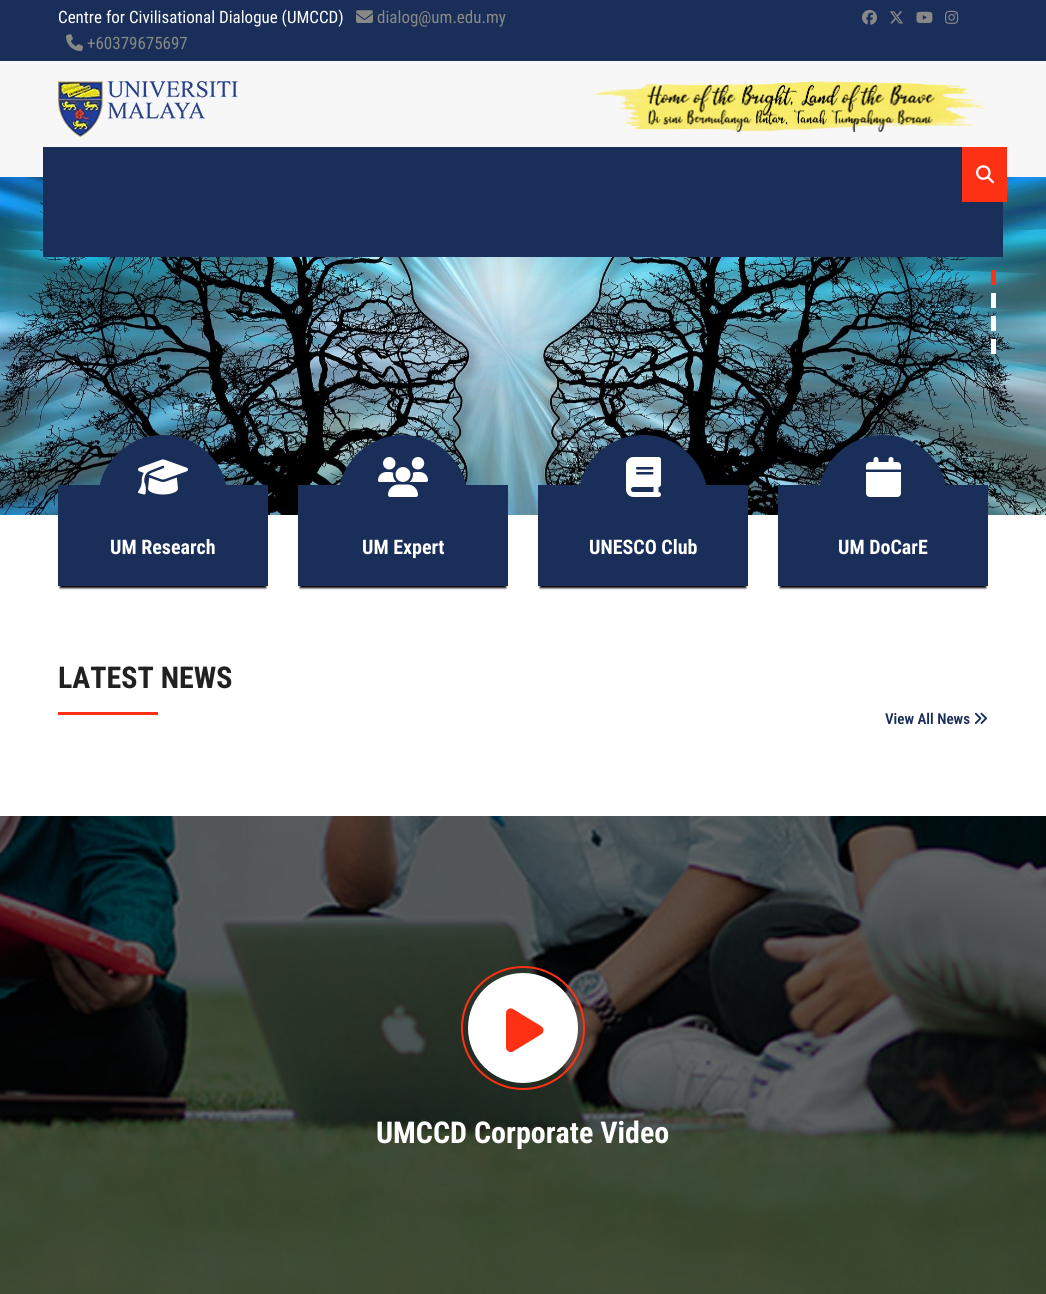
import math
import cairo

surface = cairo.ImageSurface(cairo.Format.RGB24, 1046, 1294)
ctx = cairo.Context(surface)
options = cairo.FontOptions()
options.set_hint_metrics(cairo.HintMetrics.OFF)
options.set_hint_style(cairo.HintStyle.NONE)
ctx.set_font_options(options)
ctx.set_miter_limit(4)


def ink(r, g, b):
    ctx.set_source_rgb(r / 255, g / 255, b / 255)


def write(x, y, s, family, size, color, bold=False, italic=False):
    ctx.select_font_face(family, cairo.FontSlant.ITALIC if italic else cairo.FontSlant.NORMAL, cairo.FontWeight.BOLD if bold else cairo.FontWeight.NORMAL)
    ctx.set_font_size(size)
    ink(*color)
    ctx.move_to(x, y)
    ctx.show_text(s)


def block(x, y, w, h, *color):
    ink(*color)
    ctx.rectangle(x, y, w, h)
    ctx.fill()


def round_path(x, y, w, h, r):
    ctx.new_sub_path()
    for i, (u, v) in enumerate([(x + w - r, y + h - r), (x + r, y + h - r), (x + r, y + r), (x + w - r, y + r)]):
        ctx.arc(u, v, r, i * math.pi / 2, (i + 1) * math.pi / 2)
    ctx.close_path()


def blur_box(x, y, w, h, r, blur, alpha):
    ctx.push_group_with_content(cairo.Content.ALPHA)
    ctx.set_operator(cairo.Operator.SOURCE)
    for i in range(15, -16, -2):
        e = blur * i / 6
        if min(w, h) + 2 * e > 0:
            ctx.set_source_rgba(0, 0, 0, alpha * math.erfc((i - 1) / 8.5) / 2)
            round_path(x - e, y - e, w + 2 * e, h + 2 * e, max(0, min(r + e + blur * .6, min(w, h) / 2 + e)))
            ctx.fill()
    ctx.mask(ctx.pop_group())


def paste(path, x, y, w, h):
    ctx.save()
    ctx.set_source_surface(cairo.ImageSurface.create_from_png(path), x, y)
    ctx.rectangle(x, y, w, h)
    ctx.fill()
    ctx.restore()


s1 = dict(family="Roboto Condensed", size=17, color=(255, 255, 255))
s2 = dict(family="Roboto Condensed", size=17, color=(136, 136, 133))
s3 = dict(family="Roboto Condensed", size=20, color=(255, 255, 255), bold=True)
s4 = dict(family="Roboto Condensed", size=30, color=(33, 33, 33), bold=True)
s5 = dict(family="Roboto Condensed SemiBold", size=15, color=(25, 47, 89))
s6 = dict(family="Roboto Condensed", size=30, color=(255, 255, 255), bold=True)

ink(255, 255, 255)
ctx.paint()
block(0, 0, 1046, 61, 25, 47, 89)
write(58, 23, "Centre for Civilisational Dialogue (UMCCD)", **s1)
paste("pic1.png", 356, 10, 17, 13)
write(377, 23, "dialog@um.edu.my", **s2)
paste("pic2.png", 66, 34, 17, 18)
write(87, 49, "+60379675697", **s2)
paste("pic3.png", 862, 9, 15, 16)
paste("pic4.png", 890, 11, 14, 13)
paste("pic5.png", 916, 11, 17, 12)
paste("pic6.png", 945, 10, 14, 14)
block(0, 61, 1046, 116, 247, 247, 247)
paste("pic7.png", 58, 81, 180, 56)
paste("pic8.png", 591, 81, 397, 51)
paste("pic10.png", 0, 177, 1046, 338)
block(43, 147, 960, 110, 25, 47, 89)
block(962, 147, 45, 55, 255, 49, 21)
paste("pic9.png", 976, 165, 18, 19)
block(991, 270, 5, 15, 255, 49, 21)
block(991, 293, 5, 15, 255, 255, 255)
block(991, 316, 5, 15, 255, 255, 255)
block(991, 339, 5, 15, 255, 255, 255)
ink(0, 0, 0)
blur_box(60, 491, 206, 97, 0, 1, 1)
block(58, 485, 210, 101, 25, 47, 89)
ctx.arc(163, 500, 65, 0, 2 * math.pi)
ctx.fill()
paste("pic11.png", 138, 459, 50, 36)
write(110, 554, "UM Research", **s3)
ink(0, 0, 0)
blur_box(300, 491, 206, 97, 0, 1, 1)
block(298, 485, 210, 101, 25, 47, 89)
ctx.arc(403, 500, 65, 0, 2 * math.pi)
ctx.fill()
paste("pic12.png", 378, 457, 50, 40)
write(362, 554, "UM Expert", **s3)
ink(0, 0, 0)
blur_box(540, 491, 206, 97, 0, 1, 1)
block(538, 485, 210, 101, 25, 47, 89)
ctx.arc(643, 500, 65, 0, 2 * math.pi)
ctx.fill()
paste("pic13.png", 626, 457, 35, 40)
write(589, 554, "UNESCO Club", **s3)
ink(0, 0, 0)
blur_box(780, 491, 206, 97, 0, 1, 1)
block(778, 485, 210, 101, 25, 47, 89)
ctx.arc(883, 500, 65, 0, 2 * math.pi)
ctx.fill()
paste("pic14.png", 866, 457, 35, 40)
write(838, 554, "UM DoCarE", **s3)
write(58, 688, "LATEST NEWS", **s4)
block(58, 712, 100, 3, 255, 49, 21)
write(885, 724, "View All News", **s5)
paste("pic15.png", 974, 712, 13, 12)
paste("pic16.png", 0, 816, 1046, 478)
ctx.arc(523, 1028, 61, 0, 2 * math.pi)
ink(255, 49, 21)
ctx.stroke()
ink(255, 255, 255)
ctx.arc(523, 1028, 54, 0, 2 * math.pi)
ctx.fill_preserve()
ctx.stroke()
paste("pic17.png", 506, 1008, 38, 45)
write(376, 1143, "UMCCD Corporate Video", **s6)
surface.write_to_png("screenshot.png")
